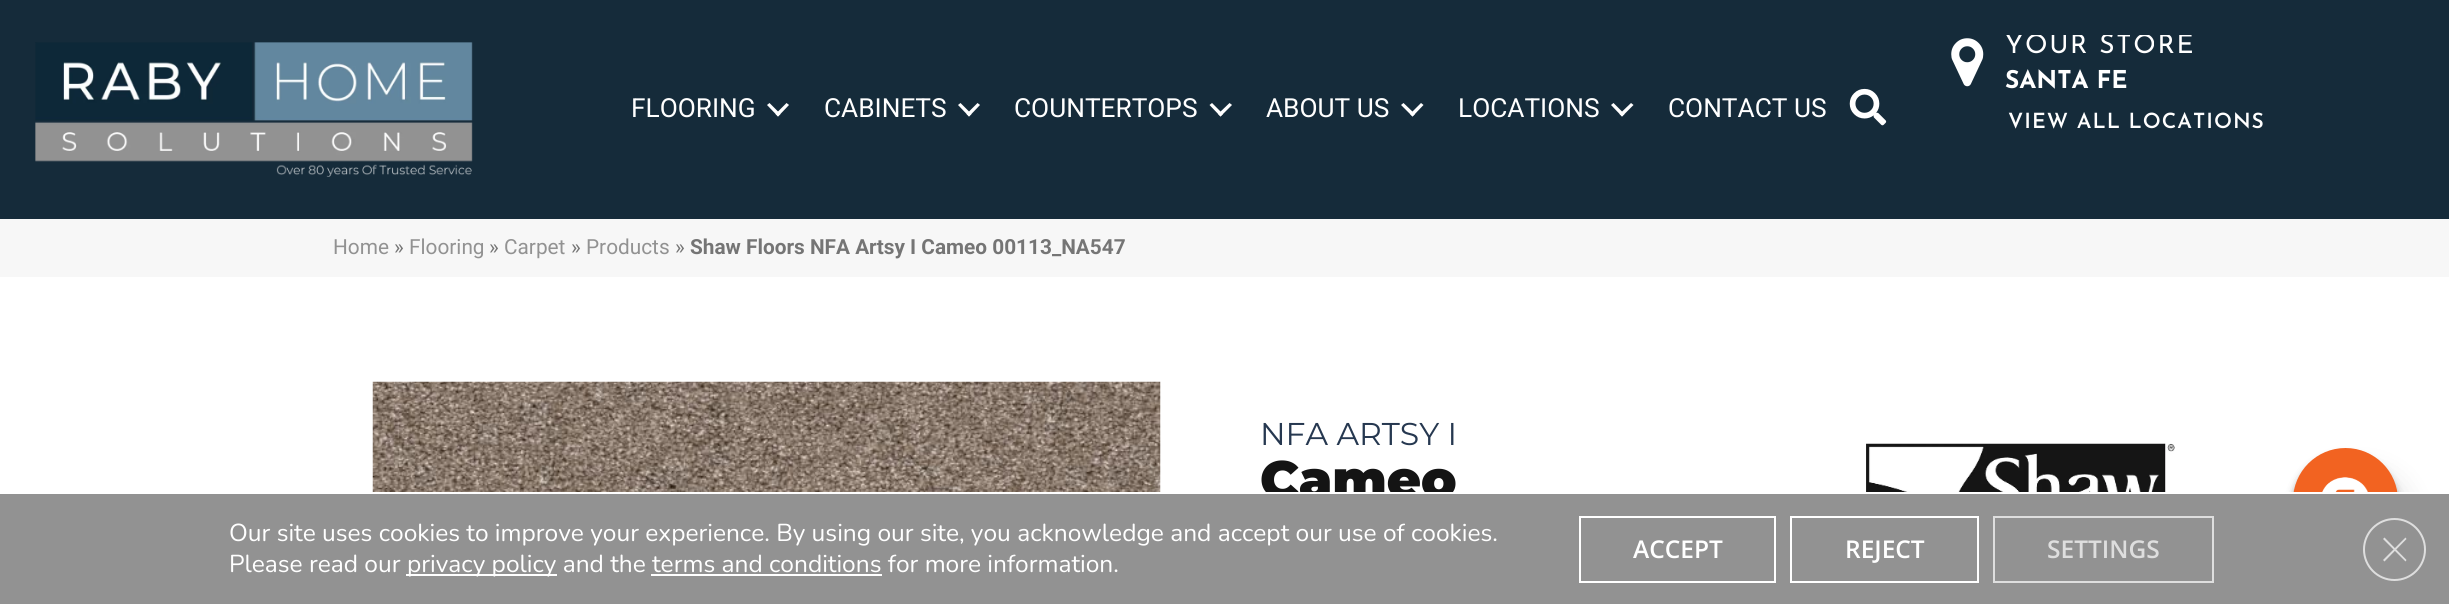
import math
import cairo

surface = cairo.ImageSurface(cairo.Format.RGB24, 2449, 604)
ctx = cairo.Context(surface)
options = cairo.FontOptions()
options.set_hint_metrics(cairo.HintMetrics.OFF)
options.set_hint_style(cairo.HintStyle.NONE)
ctx.set_font_options(options)
ctx.set_miter_limit(4)


def ink(r, g, b):
    ctx.set_source_rgb(r / 255, g / 255, b / 255)


def write(x, y, s, family, size, color, bold=False, italic=False):
    ctx.select_font_face(family, cairo.FontSlant.ITALIC if italic else cairo.FontSlant.NORMAL, cairo.FontWeight.BOLD if bold else cairo.FontWeight.NORMAL)
    ctx.set_font_size(size)
    ink(*color)
    ctx.move_to(x, y)
    ctx.show_text(s)


def write_spaced(x, y, s, letter, word):
    ctx.move_to(x, y)
    for ch in s:
        ctx.show_text(ch)
        ctx.rel_move_to(letter + word * (ch == ' '), 0)


def block(x, y, w, h, *color):
    ink(*color)
    ctx.rectangle(x, y, w, h)
    ctx.fill()


def round_path(x, y, w, h, r):
    ctx.new_sub_path()
    for i, (u, v) in enumerate([(x + w - r, y + h - r), (x + r, y + h - r), (x + r, y + r), (x + w - r, y + r)]):
        ctx.arc(u, v, r, i * math.pi / 2, (i + 1) * math.pi / 2)
    ctx.close_path()


def blur_box(x, y, w, h, r, blur, alpha):
    ctx.push_group_with_content(cairo.Content.ALPHA)
    ctx.set_operator(cairo.Operator.SOURCE)
    for i in range(15, -16, -2):
        e = blur * i / 6
        if min(w, h) + 2 * e > 0:
            ctx.set_source_rgba(0, 0, 0, alpha * math.erfc((i - 1) / 8.5) / 2)
            round_path(x - e, y - e, w + 2 * e, h + 2 * e, max(0, min(r + e + blur * .6, min(w, h) / 2 + e)))
            ctx.fill()
    ctx.mask(ctx.pop_group())


def paste(path, x, y, w, h):
    ctx.save()
    ctx.set_source_surface(cairo.ImageSurface.create_from_png(path), x, y)
    ctx.rectangle(x, y, w, h)
    ctx.fill()
    ctx.restore()


s1 = dict(family="Roboto", size=26.25, color=(255, 255, 255))
s2 = dict(family="Josefin Sans", size=24.5, color=(255, 255, 255), bold=True)
s3 = dict(family="Roboto", size=20.8, color=(146, 146, 146))
s4 = dict(family="Roboto", size=20.8, color=(117, 117, 117))
s5 = dict(family="Roboto", size=20.8, color=(117, 117, 117), bold=True)
s6 = dict(family="Montserrat", size=31.5, color=(38, 56, 80))
s7 = dict(family="Montserrat Black", size=52.5, color=(20, 20, 20))
s8 = dict(family="Nunito", size=24.5, color=(255, 255, 255))
s9 = dict(family="Open Sans SemiBold", size=24.5, color=(255, 255, 255))
s10 = dict(family="Open Sans SemiBold", size=24.5, color=(222, 222, 222))

ink(21, 43, 58)
ctx.paint()
paste("pic1.png", 35, 42, 438, 135)
write(631, 117, "FLOORING", **s1)
ctx.new_path()
ctx.move_to(786.5, 103)
ctx.line_to(789, 105)
ctx.line_to(778, 116.5)
ctx.line_to(775.5, 114)
ctx.close_path()
ctx.fill()
ctx.new_path()
ctx.move_to(769.5, 103)
ctx.line_to(780.5, 114)
ctx.line_to(778, 116.5)
ctx.line_to(767, 105)
ctx.close_path()
ctx.fill()
write(824, 117, "CABINETS", **s1)
ctx.new_path()
ctx.move_to(977.5, 103)
ctx.line_to(980, 105)
ctx.line_to(969, 116.5)
ctx.line_to(966.5, 114)
ctx.close_path()
ctx.fill()
ctx.new_path()
ctx.move_to(960.5, 103)
ctx.line_to(971.5, 114)
ctx.line_to(969, 116.5)
ctx.line_to(958, 105)
ctx.close_path()
ctx.fill()
write(1014, 117, "COUNTERTOPS", **s1)
ctx.new_path()
ctx.move_to(1229.5, 103)
ctx.line_to(1232, 105)
ctx.line_to(1220.5, 116.5)
ctx.line_to(1218, 114)
ctx.close_path()
ctx.fill()
ctx.new_path()
ctx.move_to(1212, 103)
ctx.line_to(1223, 114)
ctx.line_to(1220.5, 116.5)
ctx.line_to(1209.5, 105)
ctx.close_path()
ctx.fill()
write(1266, 117, "ABOUT US", **s1)
ctx.new_path()
ctx.move_to(1421, 103)
ctx.line_to(1423.5, 105)
ctx.line_to(1412.5, 116.5)
ctx.line_to(1410, 114)
ctx.close_path()
ctx.fill()
ctx.new_path()
ctx.move_to(1403.5, 103)
ctx.line_to(1415, 114)
ctx.line_to(1412.5, 116.5)
ctx.line_to(1401, 105)
ctx.close_path()
ctx.fill()
write(1458, 117, "LOCATIONS", **s1)
ctx.new_path()
ctx.move_to(1631, 103)
ctx.line_to(1633.5, 105)
ctx.line_to(1622, 116.5)
ctx.line_to(1619.5, 114)
ctx.close_path()
ctx.fill()
ctx.new_path()
ctx.move_to(1613.5, 103)
ctx.line_to(1624.5, 114)
ctx.line_to(1622, 116.5)
ctx.line_to(1611, 105)
ctx.close_path()
ctx.fill()
write(1668, 117, "CONTACT US", **s1)
paste("pic2.png", 1849, 88, 38, 38)
paste("pic3.png", 1951, 38, 33, 49)
ctx.save()
ctx.rectangle(1951, 35, 384, 121)
ctx.clip()
ctx.select_font_face("Josefin Sans")
write_spaced(2005, 53, "YOUR STORE", 1.75, 0)
ctx.restore()
write(2005, 88, "SANTA FE", **s2)
ctx.select_font_face("Josefin Sans SemiBold")
ctx.set_font_size(21)
write_spaced(2008, 128, "VIEW ALL LOCATIONS", 1, 0)
block(0, 277, 2449, 215, 255, 255, 255)
block(0, 219, 2449, 58, 247, 247, 247)
write(333, 254, "Home", **s3)
write(394, 254, "»", **s4)
write(409, 254, "Flooring", **s3)
write(489, 254, "»", **s4)
write(504, 254, "Carpet", **s3)
write(571, 254, "»", **s4)
write(586, 254, "Products", **s3)
write(675, 254, "»", **s4)
write(690, 254, "Shaw Floors NFA Artsy I Cameo 00113_NA547", **s5)
paste("pic4.png", 372, 381, 789, 111)
write(1260, 445, "NFA ARTSY I", **s6)
write(1260, 498, "Cameo", **s7)
paste("pic5.png", 1866, 443, 309, 49)
ink(0, 0, 0)
blur_box(2296, 459, 98, 98, 49, 5, 1)
blur_box(2315, 471, 95, 94, 47, 13, 0.1)
ink(242, 99, 33)
ctx.arc(2345.5, 500.5, 52.5, 0, 2 * math.pi)
ctx.fill()
block(0, 494, 2449, 110, 146, 146, 146)
block(0, 492, 2449, 2, 255, 255, 255)
write(229, 541, "Our site uses cookies to improve your experience. By using our site, you acknowledge and accept our use of cookies.", **s8)
write(229, 572, "Please read our", **s8)
block(406, 574, 151, 2, 255, 255, 255)
write(407, 572, "privacy policy and the terms and conditions for more information.", **s8)
block(651, 574, 231, 2, 255, 255, 255)
ctx.rectangle(1580, 517, 195, 65)
ctx.stroke()
write(1633, 558, "ACCEPT", **s9)
ctx.rectangle(1791, 517, 187, 65)
ctx.stroke()
write(1845, 558, "REJECT", **s9)
ctx.rectangle(1994, 517, 219, 65)
ink(222, 222, 222)
ctx.stroke()
write(2047, 558, "SETTINGS", **s10)
ctx.new_path()
ctx.arc(2394.5, 549.5, 30.5, 0, 2 * math.pi)
ctx.stroke()
ctx.new_path()
ctx.move_to(2405.5, 537.5)
ctx.line_to(2406.5, 539)
ctx.line_to(2384.5, 561.5)
ctx.line_to(2383, 560)
ctx.close_path()
ctx.fill()
ctx.new_path()
ctx.move_to(2383, 539)
ctx.line_to(2384.5, 537.5)
ctx.line_to(2406.5, 560)
ctx.line_to(2405.5, 561.5)
ctx.close_path()
ctx.fill()
paste("pic6.png", 2322, 477, 46, 15)
surface.write_to_png("screenshot.png")
